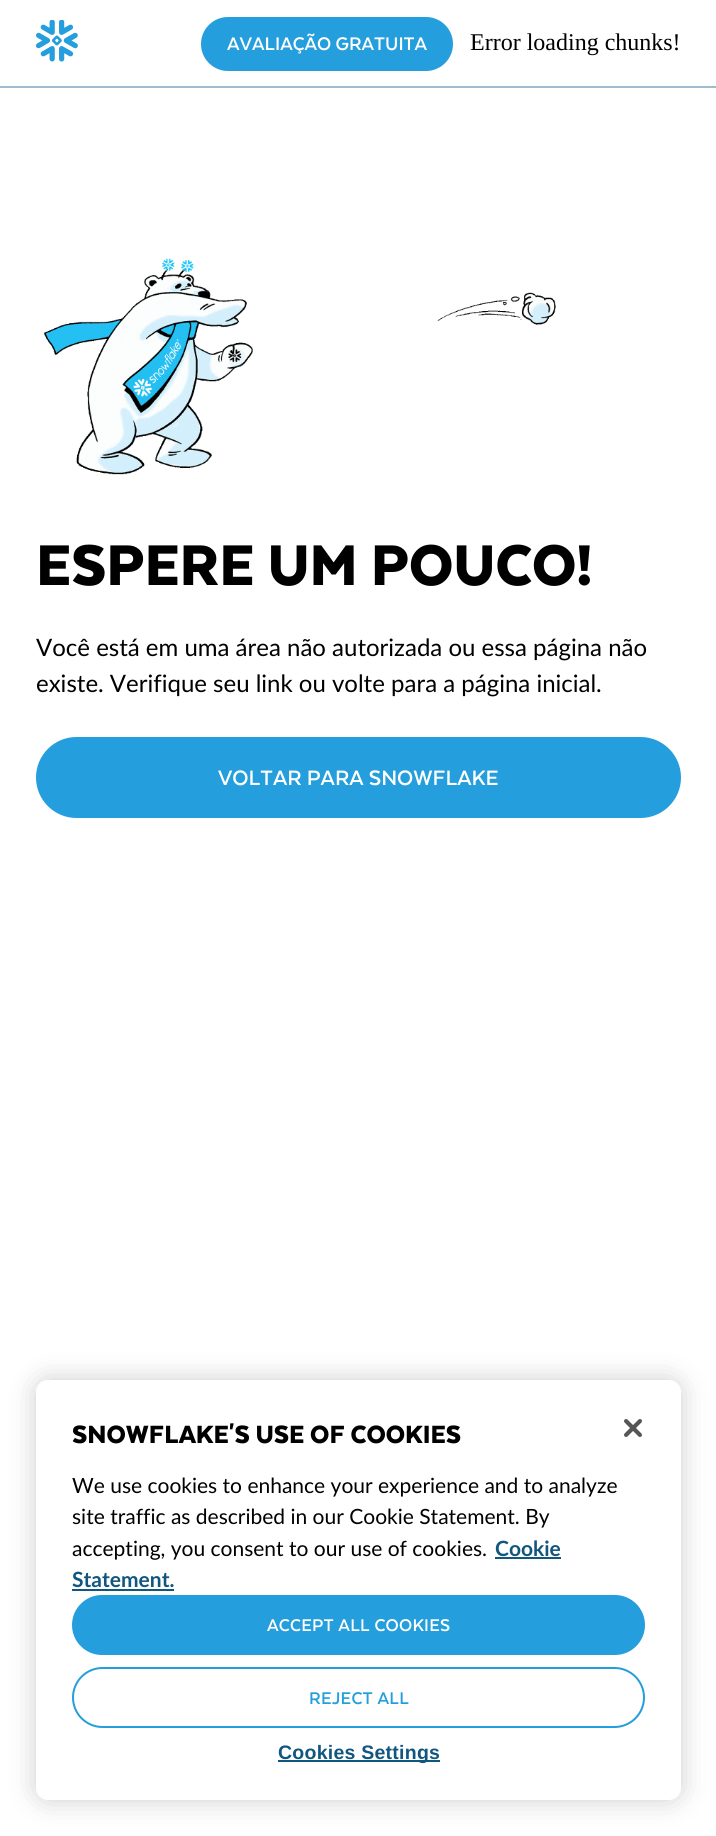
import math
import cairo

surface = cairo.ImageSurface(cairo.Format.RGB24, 716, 1836)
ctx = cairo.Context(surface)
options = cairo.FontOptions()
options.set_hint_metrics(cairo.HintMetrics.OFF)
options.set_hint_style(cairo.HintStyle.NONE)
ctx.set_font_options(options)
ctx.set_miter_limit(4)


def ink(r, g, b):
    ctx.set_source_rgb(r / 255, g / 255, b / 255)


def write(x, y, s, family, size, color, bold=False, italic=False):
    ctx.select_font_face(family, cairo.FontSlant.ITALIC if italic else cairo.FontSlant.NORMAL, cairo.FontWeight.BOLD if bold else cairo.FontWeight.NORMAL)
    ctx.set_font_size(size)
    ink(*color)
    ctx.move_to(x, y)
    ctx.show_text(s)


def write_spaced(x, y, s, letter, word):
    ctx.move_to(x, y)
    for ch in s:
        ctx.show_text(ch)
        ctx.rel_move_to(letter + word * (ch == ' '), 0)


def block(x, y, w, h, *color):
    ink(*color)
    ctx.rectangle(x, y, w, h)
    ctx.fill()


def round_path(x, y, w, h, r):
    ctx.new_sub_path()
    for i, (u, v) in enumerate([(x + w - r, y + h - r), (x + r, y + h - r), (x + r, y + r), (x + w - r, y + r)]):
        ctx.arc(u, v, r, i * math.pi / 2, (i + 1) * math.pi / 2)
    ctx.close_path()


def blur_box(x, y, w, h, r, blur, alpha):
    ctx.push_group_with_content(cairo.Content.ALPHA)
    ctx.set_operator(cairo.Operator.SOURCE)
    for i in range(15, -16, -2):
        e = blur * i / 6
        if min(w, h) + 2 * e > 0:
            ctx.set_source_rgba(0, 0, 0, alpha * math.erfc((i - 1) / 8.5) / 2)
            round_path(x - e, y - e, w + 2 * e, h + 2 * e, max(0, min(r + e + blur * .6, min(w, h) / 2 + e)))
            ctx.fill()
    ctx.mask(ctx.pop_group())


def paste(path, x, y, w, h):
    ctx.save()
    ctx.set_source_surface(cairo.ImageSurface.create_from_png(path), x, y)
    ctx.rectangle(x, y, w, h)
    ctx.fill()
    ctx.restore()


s1 = dict(family="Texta", size=21, color=(255, 255, 255), bold=True)
s2 = dict(family="Liberation Serif", size=24, color=(0, 0, 0))
s3 = dict(family="Texta Black", size=66, color=(0, 0, 0))
s4 = dict(family="Lato", size=24, color=(0, 0, 0))
s5 = dict(family="Texta", size=24, color=(255, 255, 255), bold=True)
s6 = dict(family="Texta Black", size=28.75, color=(0, 0, 0))
s7 = dict(family="Lato", size=21, color=(0, 0, 0))
s8 = dict(family="Lato", size=21, color=(17, 86, 127), bold=True)

ink(255, 255, 255)
ctx.paint()
block(0, 86, 716, 2, 160, 187, 204)
paste("pic1.png", 36, 20, 42, 42)
ink(36, 158, 220)
round_path(202, 18, 250, 52, 26)
ctx.fill_preserve()
ctx.stroke()
write(227, 50, "AVALIAÇÃO GRATUITA", **s1)
write(470, 50, "Error loading chunks!", **s2)
paste("pic2.png", 43, 258, 513, 217)
write(36, 585, "ESPERE UM POUCO!", **s3)
write(36, 656, "Você está em uma área não autorizada ou essa página não", **s4)
write(36, 692, "existe. Verifique seu link ou volte para a página inicial.", **s4)
ink(36, 158, 220)
round_path(37, 738, 643, 79, 39.5)
ctx.fill_preserve()
ctx.stroke()
write(218, 785, "VOLTAR PARA SNOWFLAKE", **s5)
ink(0, 0, 0)
blur_box(36, 1380, 645, 420, 12, 13.5, 0.2)
ink(255, 255, 255)
round_path(36, 1380, 645, 420, 12)
ctx.fill()
write(72, 1443, "SNOWFLAKE'S USE OF COOKIES", **s6)
write(72, 1493, "We use cookies to enhance your experience and to analyze", **s7)
write(72, 1524, "site traffic as described in our Cookie Statement. By", **s7)
write(72, 1556, "accepting, you consent to our use of cookies.", **s7)
write(495, 1556, "Cookie", **s8)
block(495, 1557, 66, 2, 17, 86, 127)
write(72, 1587, "Statement.", **s8)
block(72, 1589, 102, 2, 17, 86, 127)
ink(36, 158, 220)
round_path(72, 1595, 573, 60, 30)
ctx.fill()
ctx.select_font_face("Texta", cairo.FontSlant.NORMAL, cairo.FontWeight.BOLD)
ctx.set_font_size(19.5)
ink(255, 255, 255)
write_spaced(267, 1631, "ACCEPT ALL COOKIES", 0.25, 0)
round_path(73, 1668, 571, 59, 29.5)
ink(36, 158, 220)
ctx.stroke()
write_spaced(309, 1704, "REJECT ALL", 0.25, 0)
block(278, 1760, 162, 2, 17, 86, 127)
ctx.select_font_face("Liberation Sans", cairo.FontSlant.NORMAL, cairo.FontWeight.BOLD)
write_spaced(278, 1759, "Cookies Settings", 0.25, 0)
paste("pic3.png", 624, 1419, 18, 18)
surface.write_to_png("screenshot.png")
